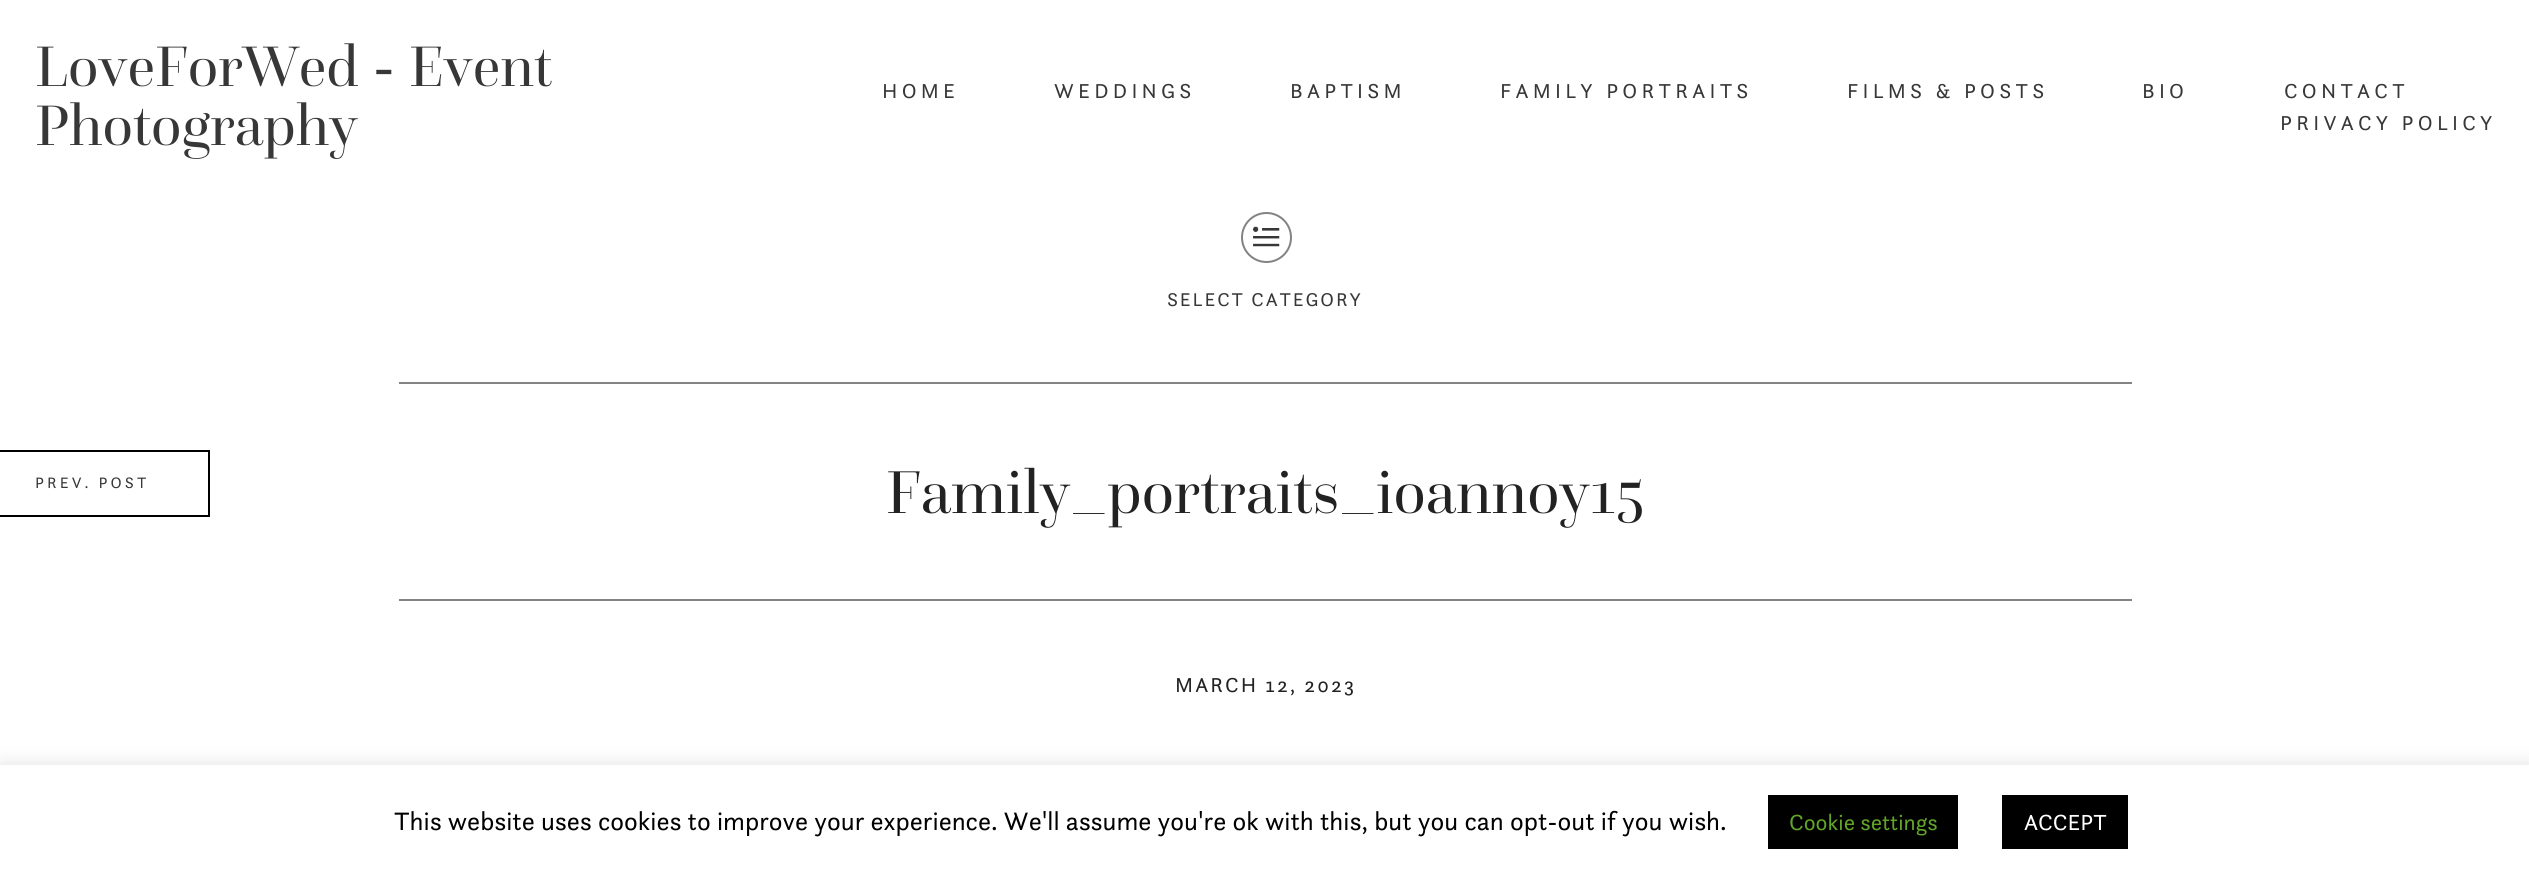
import math
import cairo

surface = cairo.ImageSurface(cairo.Format.RGB24, 2529, 877)
ctx = cairo.Context(surface)
options = cairo.FontOptions()
options.set_hint_metrics(cairo.HintMetrics.OFF)
options.set_hint_style(cairo.HintStyle.NONE)
ctx.set_font_options(options)
ctx.set_miter_limit(4)


def ink(r, g, b):
    ctx.set_source_rgb(r / 255, g / 255, b / 255)


def write(x, y, s, family, size, color, bold=False, italic=False):
    ctx.select_font_face(family, cairo.FontSlant.ITALIC if italic else cairo.FontSlant.NORMAL, cairo.FontWeight.BOLD if bold else cairo.FontWeight.NORMAL)
    ctx.set_font_size(size)
    ink(*color)
    ctx.move_to(x, y)
    ctx.show_text(s)


def write_spaced(x, y, s, letter, word):
    ctx.move_to(x, y)
    for ch in s:
        ctx.show_text(ch)
        ctx.rel_move_to(letter + word * (ch == ' '), 0)


def block(x, y, w, h, *color):
    ink(*color)
    ctx.rectangle(x, y, w, h)
    ctx.fill()


def round_path(x, y, w, h, r):
    ctx.new_sub_path()
    for i, (u, v) in enumerate([(x + w - r, y + h - r), (x + r, y + h - r), (x + r, y + r), (x + w - r, y + r)]):
        ctx.arc(u, v, r, i * math.pi / 2, (i + 1) * math.pi / 2)
    ctx.close_path()


def blur_box(x, y, w, h, r, blur, alpha):
    ctx.push_group_with_content(cairo.Content.ALPHA)
    ctx.set_operator(cairo.Operator.SOURCE)
    for i in range(15, -16, -2):
        e = blur * i / 6
        if min(w, h) + 2 * e > 0:
            ctx.set_source_rgba(0, 0, 0, alpha * math.erfc((i - 1) / 8.5) / 2)
            round_path(x - e, y - e, w + 2 * e, h + 2 * e, max(0, min(r + e + blur * .6, min(w, h) / 2 + e)))
            ctx.fill()
    ctx.mask(ctx.pop_group())


def paste(path, x, y, w, h):
    ctx.save()
    ctx.set_source_surface(cairo.ImageSurface.create_from_png(path), x, y)
    ctx.rectangle(x, y, w, h)
    ctx.fill()
    ctx.restore()


s1 = dict(family="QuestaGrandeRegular", size=59.5, color=(55, 55, 55))
s2 = dict(family="QuestaGrandeRegular", size=63, color=(34, 34, 34))
s3 = dict(family="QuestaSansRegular", size=26.25, color=(0, 0, 0))
s4 = dict(family="QuestaSansRegular", size=22.75, color=(98, 163, 41))
s5 = dict(family="QuestaSansRegular", size=22.75, color=(255, 255, 255))

ink(255, 255, 255)
ctx.paint()
write(35, 86, "LoveForWed - Event", **s1)
write(35, 145, "Photography", **s1)
ctx.select_font_face("QuestaSansRegular")
ctx.set_font_size(21)
write_spaced(882, 98, "HOME", 4.25, 0)
write_spaced(1054, 98, "WEDDINGS", 4.25, 0)
write_spaced(1290, 98, "BAPTISM", 4.25, 0)
write_spaced(1500, 98, "FAMILY PORTRAITS", 4.25, 0)
write_spaced(1847, 98, "FILMS & POSTS", 4.25, 0)
write_spaced(2142, 98, "BIO", 4.25, 0)
write_spaced(2284, 98, "CONTACT", 4.25, 0)
write_spaced(2280, 130, "PRIVACY POLICY", 4.25, 0)
paste("pic1.png", 1253, 226, 27, 21)
ctx.arc(1266.5, 237.5, 24.5, 0, 2 * math.pi)
ink(131, 131, 131)
ctx.stroke()
ctx.set_font_size(19.25)
ink(55, 55, 55)
write_spaced(1167, 306, "SELECT CATEGORY", 1.9, 0)
block(0, 450, 210, 2, 0, 0, 0)
block(208, 450, 2, 66, 0, 0, 0)
block(0, 515, 210, 2, 0, 0, 0)
ctx.set_font_size(15.75)
ink(55, 55, 55)
write_spaced(35, 488, "PREV. POST", 3.1, 0)
block(399, 382, 1733, 2, 131, 131, 131)
block(399, 599, 1733, 2, 131, 131, 131)
write(886, 513, "Family_portraits_ioannoy15", **s2)
ctx.select_font_face("QuestaSansRegular")
ctx.set_font_size(21)
write_spaced(1175, 692, "MARCH 12, 2023", 2.1, 0)
ink(172, 171, 171)
blur_box(0, 763, 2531, 114, 0, 9, 0.3)
block(0, 765, 2529, 112, 255, 255, 255)
write(394, 830, "This website uses cookies to improve your experience. We'll assume you're ok with this, but you can opt-out if you wish.", **s3)
block(1768, 795, 190, 54, 0, 0, 0)
write(1789, 830, "Cookie settings", **s4)
block(2002, 795, 126, 54, 0, 0, 0)
write(2024, 830, "ACCEPT", **s5)
surface.write_to_png("screenshot.png")
